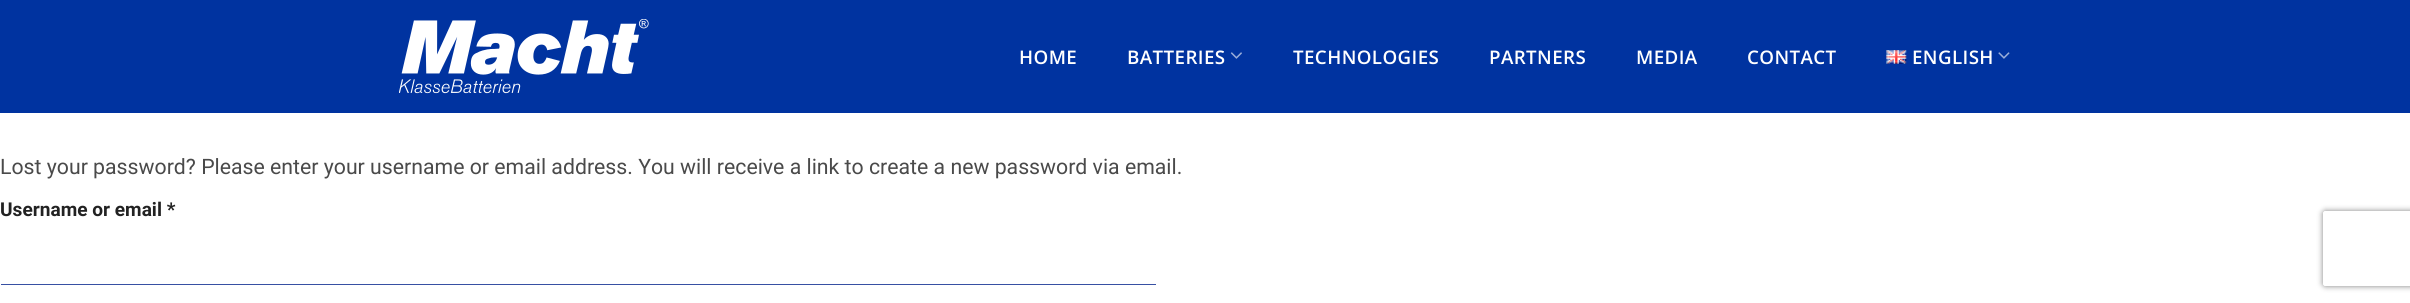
import math
import cairo

surface = cairo.ImageSurface(cairo.Format.RGB24, 2410, 303)
ctx = cairo.Context(surface)
options = cairo.FontOptions()
options.set_hint_metrics(cairo.HintMetrics.OFF)
options.set_hint_style(cairo.HintStyle.NONE)
ctx.set_font_options(options)
ctx.set_miter_limit(4)


def ink(r, g, b):
    ctx.set_source_rgb(r / 255, g / 255, b / 255)


def write(x, y, s, family, size, color, bold=False, italic=False):
    ctx.select_font_face(family, cairo.FontSlant.ITALIC if italic else cairo.FontSlant.NORMAL, cairo.FontWeight.BOLD if bold else cairo.FontWeight.NORMAL)
    ctx.set_font_size(size)
    ink(*color)
    ctx.move_to(x, y)
    ctx.show_text(s)


def write_spaced(x, y, s, letter, word):
    ctx.move_to(x, y)
    for ch in s:
        ctx.show_text(ch)
        ctx.rel_move_to(letter + word * (ch == ' '), 0)


def block(x, y, w, h, *color):
    ink(*color)
    ctx.rectangle(x, y, w, h)
    ctx.fill()


def round_path(x, y, w, h, r):
    ctx.new_sub_path()
    for i, (u, v) in enumerate([(x + w - r, y + h - r), (x + r, y + h - r), (x + r, y + r), (x + w - r, y + r)]):
        ctx.arc(u, v, r, i * math.pi / 2, (i + 1) * math.pi / 2)
    ctx.close_path()


def blur_box(x, y, w, h, r, blur, alpha):
    ctx.push_group_with_content(cairo.Content.ALPHA)
    ctx.set_operator(cairo.Operator.SOURCE)
    for i in range(15, -16, -2):
        e = blur * i / 6
        if min(w, h) + 2 * e > 0:
            ctx.set_source_rgba(0, 0, 0, alpha * math.erfc((i - 1) / 8.5) / 2)
            round_path(x - e, y - e, w + 2 * e, h + 2 * e, max(0, min(r + e + blur * .6, min(w, h) / 2 + e)))
            ctx.fill()
    ctx.mask(ctx.pop_group())


def paste(path, x, y, w, h):
    ctx.save()
    ctx.set_source_surface(cairo.ImageSurface.create_from_png(path), x, y)
    ctx.rectangle(x, y, w, h)
    ctx.fill()
    ctx.restore()


s1 = dict(family="Roboto", size=21.25, color=(74, 74, 74))
s2 = dict(family="Roboto", size=19.1, color=(34, 34, 34), bold=True)

ink(255, 255, 255)
ctx.paint()
block(0, 0, 2410, 113, 0, 51, 160)
paste("pic1.png", 399, 19, 250, 75)
ctx.select_font_face("Open Sans SemiBold")
ctx.set_font_size(18.75)
ink(255, 255, 255)
write_spaced(1019, 64, "HOME", 0.4, 0)
write_spaced(1127, 64, "BATTERIES", 0.4, 0)
paste("pic2.png", 1230, 52, 12, 7)
write_spaced(1293, 64, "TECHNOLOGIES", 0.4, 0)
write_spaced(1489, 64, "PARTNERS", 0.4, 0)
write_spaced(1636, 64, "MEDIA", 0.4, 0)
write_spaced(1747, 64, "CONTACT", 0.4, 0)
paste("pic3.png", 1886, 50, 21, 14)
write_spaced(1912, 64, "ENGLISH", 0.4, 0)
paste("pic4.png", 1998, 52, 12, 7)
write(0, 174, "Lost your password? Please enter your username or email address. You will receive a link to create a new password via email.", **s1)
write(0, 216, "Username or email *", **s2)
block(0, 284, 1156, 1, 55, 80, 163)
block(0, 284, 1, 1, 255, 255, 255)
ctx.save()
ctx.set_fill_rule(cairo.FillRule.EVEN_ODD)
ctx.new_path()
ctx.move_to(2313, 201)
ctx.line_to(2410, 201)
ctx.line_to(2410, 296)
ctx.line_to(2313, 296)
ctx.close_path()
ctx.move_to(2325.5, 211)
ctx.line_to(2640.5, 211)
ctx.curve_to(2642, 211, 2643, 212, 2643, 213.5)
ctx.line_to(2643, 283.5)
ctx.curve_to(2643, 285, 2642, 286, 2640.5, 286)
ctx.line_to(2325.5, 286)
ctx.curve_to(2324, 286, 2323, 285, 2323, 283.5)
ctx.line_to(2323, 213.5)
ctx.curve_to(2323, 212, 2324, 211, 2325.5, 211)
ctx.close_path()
ctx.clip()
ink(128, 128, 128)
blur_box(2323, 211, 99, 75, 2.5, 3, 1)
ctx.restore()
surface.write_to_png("screenshot.png")
